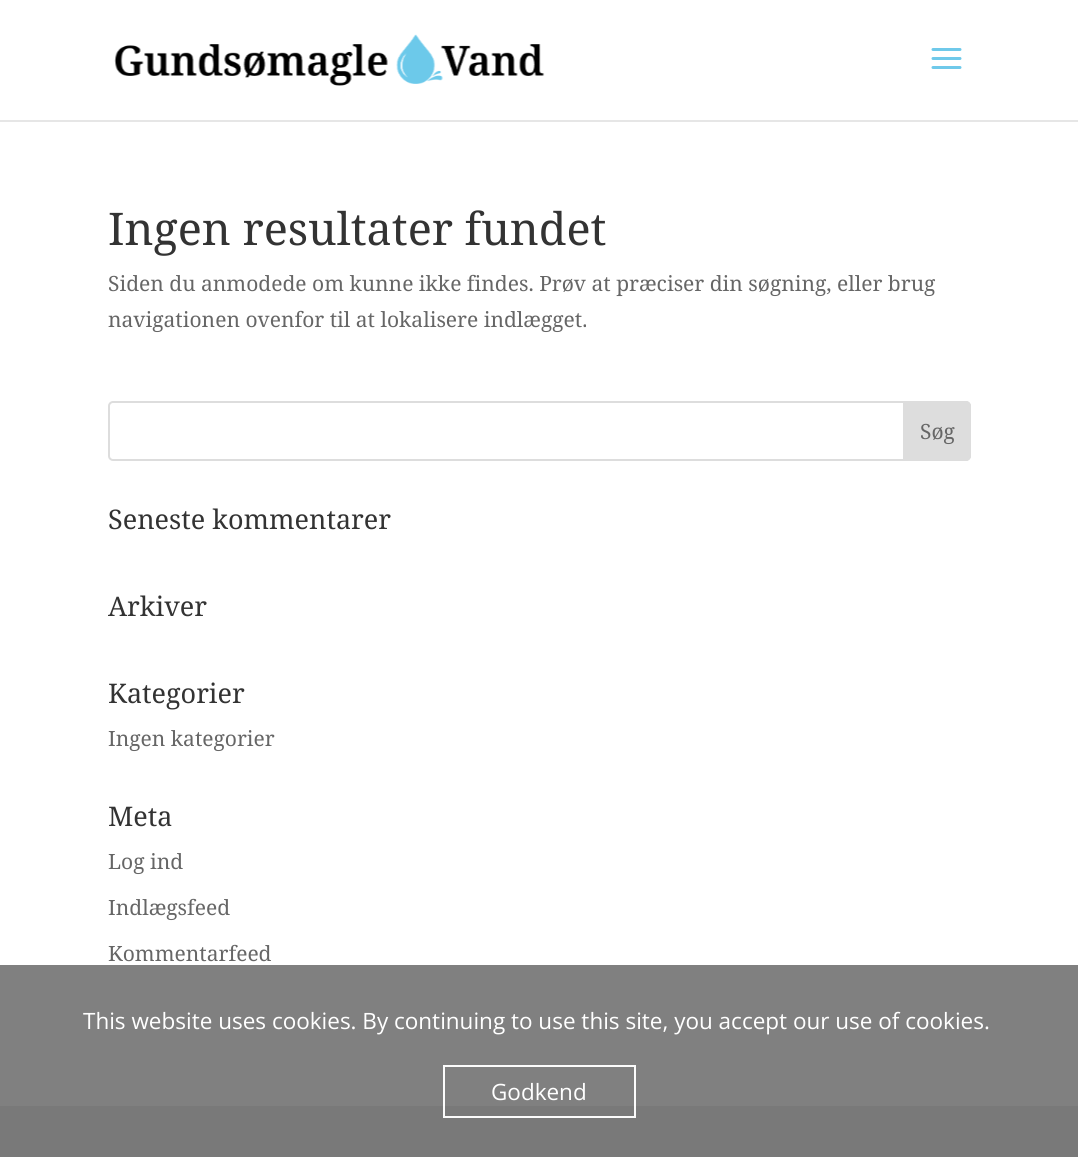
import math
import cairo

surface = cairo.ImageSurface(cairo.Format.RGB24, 1078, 1157)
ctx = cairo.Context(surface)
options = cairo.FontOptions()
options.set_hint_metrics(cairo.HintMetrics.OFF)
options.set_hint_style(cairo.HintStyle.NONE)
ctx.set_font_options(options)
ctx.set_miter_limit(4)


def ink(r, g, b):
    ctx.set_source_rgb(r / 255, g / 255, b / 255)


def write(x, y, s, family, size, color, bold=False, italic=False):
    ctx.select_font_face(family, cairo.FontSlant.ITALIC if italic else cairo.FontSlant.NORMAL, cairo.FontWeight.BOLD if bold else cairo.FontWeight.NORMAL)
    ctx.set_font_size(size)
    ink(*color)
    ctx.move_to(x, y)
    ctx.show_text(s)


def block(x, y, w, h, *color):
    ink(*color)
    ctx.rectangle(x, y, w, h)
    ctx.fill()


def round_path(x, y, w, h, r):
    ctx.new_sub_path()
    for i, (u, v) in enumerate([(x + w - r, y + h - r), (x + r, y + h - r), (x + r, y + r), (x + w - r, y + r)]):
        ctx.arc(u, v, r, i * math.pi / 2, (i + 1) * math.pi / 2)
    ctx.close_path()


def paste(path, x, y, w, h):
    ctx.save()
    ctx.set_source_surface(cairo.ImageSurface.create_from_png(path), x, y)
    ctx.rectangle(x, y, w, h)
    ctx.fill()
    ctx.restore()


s1 = dict(family="Noto Serif", size=45, color=(51, 51, 51))
s2 = dict(family="Noto Serif", size=21, color=(102, 102, 102))
s3 = dict(family="Noto Serif", size=27, color=(51, 51, 51))
s4 = dict(family="Open Sans", size=22.5, color=(255, 255, 255))

ink(255, 255, 255)
ctx.paint()
block(0, 965, 1078, 141, 128, 128, 128)
ink(230, 230, 230)
ctx.new_path()
ctx.move_to(0, 120)
ctx.line_to(0, 122)
ctx.line_to(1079, 122)
ctx.line_to(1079, 2)
ctx.line_to(1078, 2)
ctx.line_to(1078, 120)
ctx.close_path()
ctx.fill()
paste("pic1.png", 114, 34, 431, 52)
paste("pic2.png", 931, 48, 31, 21)
write(108, 245, "Ingen resultater fundet", **s1)
write(108, 291, "Siden du anmodede om kunne ikke findes. Prøv at præciser din søgning, eller brug", **s2)
write(108, 327, "navigationen ovenfor til at lokalisere indlægget.", **s2)
round_path(109, 402, 861, 58, 4)
ink(221, 221, 221)
ctx.stroke()
ctx.new_path()
ctx.move_to(904, 402)
ctx.line_to(966, 402)
ctx.curve_to(968, 402, 970, 404, 970, 406)
ctx.line_to(970, 456)
ctx.curve_to(970, 458, 968, 460, 966, 460)
ctx.line_to(904, 460)
ctx.close_path()
ctx.fill_preserve()
ctx.stroke()
write(920, 439, "Søg", **s2)
write(108, 529, "Seneste kommentarer", **s3)
write(108, 616, "Arkiver", **s3)
write(108, 703, "Kategorier", **s3)
write(108, 746, "Ingen kategorier", **s2)
write(108, 826, "Meta", **s3)
write(108, 869, "Log ind", **s2)
write(108, 915, "Indlægsfeed", **s2)
write(108, 961, "Kommentarfeed", **s2)
block(0, 1106, 1078, 51, 121, 121, 121)
write(83, 1029, "This website uses cookies. By continuing to use this site, you accept our use of cookies.", **s4)
ctx.rectangle(444, 1066, 191, 51)
ctx.set_source_rgba(1, 1, 1, 0.97)
ctx.stroke()
write(491, 1100, "Godkend", **s4)
surface.write_to_png("screenshot.png")
